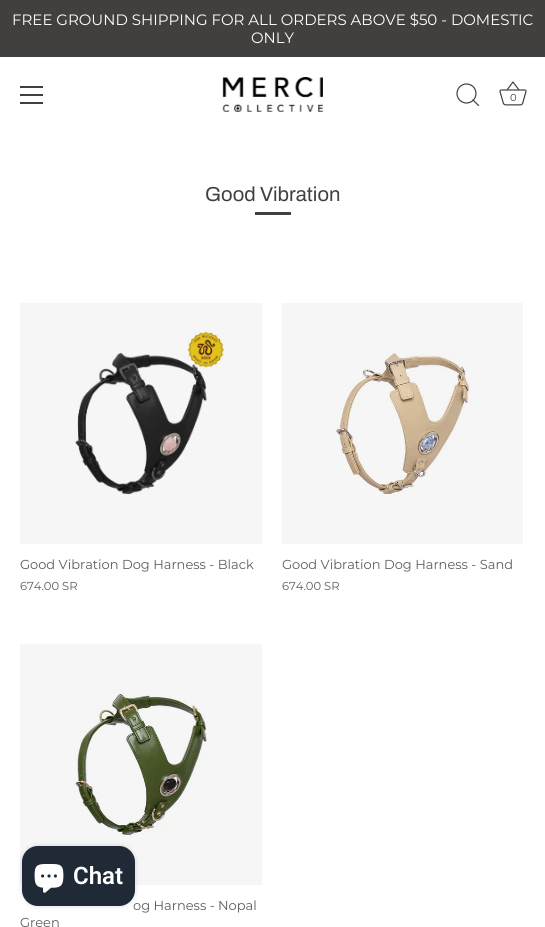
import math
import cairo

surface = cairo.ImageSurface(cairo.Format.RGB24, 545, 927)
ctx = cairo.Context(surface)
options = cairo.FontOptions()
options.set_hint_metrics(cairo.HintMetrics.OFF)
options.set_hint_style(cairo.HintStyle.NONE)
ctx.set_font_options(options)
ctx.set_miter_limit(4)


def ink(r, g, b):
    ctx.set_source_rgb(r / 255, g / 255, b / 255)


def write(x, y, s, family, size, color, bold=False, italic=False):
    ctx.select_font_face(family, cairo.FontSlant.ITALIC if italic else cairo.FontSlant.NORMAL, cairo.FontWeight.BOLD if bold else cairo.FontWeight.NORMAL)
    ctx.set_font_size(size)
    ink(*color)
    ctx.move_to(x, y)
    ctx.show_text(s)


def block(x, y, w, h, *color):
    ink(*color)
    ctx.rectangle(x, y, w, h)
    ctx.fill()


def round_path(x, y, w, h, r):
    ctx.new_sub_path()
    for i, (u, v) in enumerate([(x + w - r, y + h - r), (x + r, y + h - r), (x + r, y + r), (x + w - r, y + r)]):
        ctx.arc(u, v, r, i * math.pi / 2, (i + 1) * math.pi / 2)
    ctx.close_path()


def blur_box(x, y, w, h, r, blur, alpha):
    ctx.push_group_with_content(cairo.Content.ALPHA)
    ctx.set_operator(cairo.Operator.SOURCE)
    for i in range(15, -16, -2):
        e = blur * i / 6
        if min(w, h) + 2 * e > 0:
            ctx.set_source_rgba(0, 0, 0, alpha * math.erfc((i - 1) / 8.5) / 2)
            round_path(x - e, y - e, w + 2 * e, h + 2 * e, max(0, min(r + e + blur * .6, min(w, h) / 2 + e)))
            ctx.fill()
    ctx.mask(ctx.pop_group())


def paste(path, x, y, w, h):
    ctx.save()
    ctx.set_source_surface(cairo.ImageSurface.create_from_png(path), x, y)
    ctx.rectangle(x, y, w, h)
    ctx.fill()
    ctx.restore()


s1 = dict(family="Montserrat", size=15, color=(255, 255, 255))
s2 = dict(family="Montserrat", size=10, color=(66, 63, 63))
s3 = dict(family="Archivo", size=20.25, color=(66, 63, 63))
s4 = dict(family="Montserrat", size=13, color=(94, 92, 92))
s5 = dict(family="Montserrat", size=11.5, color=(94, 92, 92))
s6 = dict(family="Roboto SemiBold", size=24, color=(255, 255, 255))

ink(255, 255, 255)
ctx.paint()
block(0, 0, 545, 57, 66, 63, 63)
write(12, 25, "FREE GROUND SHIPPING FOR ALL ORDERS ABOVE $50 - DOMESTIC", **s1)
write(251, 43, "ONLY", **s1)
block(20, 86, 23, 2, 66, 63, 63)
block(20, 94, 23, 2, 66, 63, 63)
block(20, 102, 23, 2, 66, 63, 63)
paste("pic1.png", 222, 77, 101, 35)
ctx.arc(466.5, 93.5, 9.5, 0, 2 * math.pi)
ctx.set_line_width(1.2)
ctx.stroke()
ctx.new_path()
ctx.move_to(478.5, 105.5)
ctx.line_to(473, 100)
ctx.set_line_cap(cairo.LineCap.ROUND)
ctx.set_line_join(cairo.LineJoin.ROUND)
ctx.stroke()
paste("pic2.png", 499, 81, 28, 25)
write(510, 101, "0", **s2)
write(205, 201, "Good Vibration", **s3)
block(255, 212, 36, 3, 66, 63, 63)
paste("pic3.png", 20, 303, 242, 241)
write(20, 569, "Good Vibration Dog Harness - Black", **s4)
write(20, 590, "674.00 SR", **s5)
paste("pic4.png", 282, 303, 241, 241)
write(282, 569, "Good Vibration Dog Harness - Sand", **s4)
write(282, 590, "674.00 SR", **s5)
paste("pic5.png", 20, 644, 242, 241)
write(133, 910, "og Harness - Nopal", **s4)
write(20, 927, "Green", **s4)
ink(0, 0, 0)
blur_box(22, 846, 113, 60, 16, 2.5, 0.15)
ink(32, 42, 54)
round_path(22, 846, 113, 60, 16)
ctx.fill()
paste("pic6.png", 34, 864, 30, 29)
write(73, 884, "Chat", **s6)
surface.write_to_png("screenshot.png")
